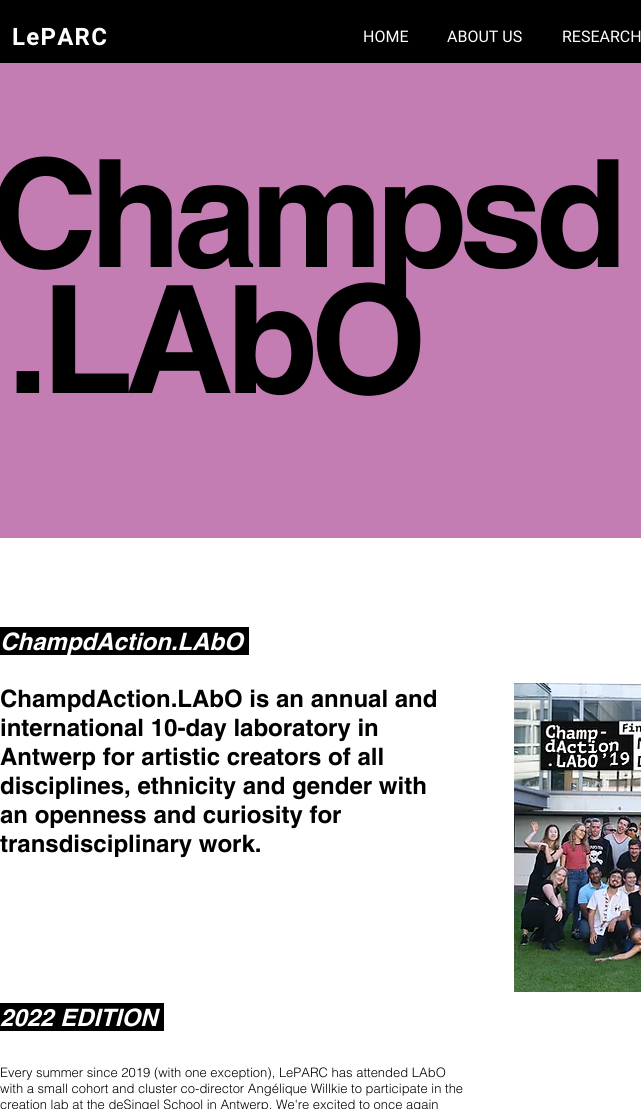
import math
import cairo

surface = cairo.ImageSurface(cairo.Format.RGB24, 641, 1109)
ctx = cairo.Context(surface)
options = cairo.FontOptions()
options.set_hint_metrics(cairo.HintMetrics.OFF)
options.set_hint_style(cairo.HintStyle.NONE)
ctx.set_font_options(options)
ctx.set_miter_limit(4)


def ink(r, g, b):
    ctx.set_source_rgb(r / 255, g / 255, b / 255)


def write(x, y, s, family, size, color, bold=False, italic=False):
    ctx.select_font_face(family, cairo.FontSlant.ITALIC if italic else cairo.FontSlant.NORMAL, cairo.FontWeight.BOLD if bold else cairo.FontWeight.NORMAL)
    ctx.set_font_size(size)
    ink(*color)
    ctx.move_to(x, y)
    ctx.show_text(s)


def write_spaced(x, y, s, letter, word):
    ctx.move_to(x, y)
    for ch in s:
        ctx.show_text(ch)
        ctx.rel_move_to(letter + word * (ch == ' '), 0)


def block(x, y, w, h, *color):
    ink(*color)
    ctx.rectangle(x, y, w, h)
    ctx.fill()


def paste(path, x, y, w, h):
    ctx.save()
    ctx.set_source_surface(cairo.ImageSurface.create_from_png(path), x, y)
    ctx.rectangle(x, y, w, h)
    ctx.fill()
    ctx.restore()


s1 = dict(family="Roboto", size=16, color=(255, 255, 255))
s2 = dict(family="helvetica", size=24, color=(255, 255, 255), bold=True, italic=True)
s3 = dict(family="helvetica", size=24, color=(0, 0, 0), bold=True)
s4 = dict(family="helvetica Light", size=13, color=(0, 0, 0))

ink(195, 125, 179)
ctx.paint()
block(0, 0, 641, 63, 0, 0, 0)
ctx.select_font_face("Roboto", cairo.FontSlant.NORMAL, cairo.FontWeight.BOLD)
ctx.set_font_size(24)
ink(255, 255, 255)
write_spaced(12, 45, "LePARC", 1.25, 0)
write(363, 42, "HOME", **s1)
write(447, 42, "ABOUT US", **s1)
write(562, 42, "RESEARCH", **s1)
ctx.select_font_face("helvetica", cairo.FontSlant.NORMAL, cairo.FontWeight.BOLD)
ctx.set_font_size(150)
ink(0, 0, 0)
write_spaced(-11, 267, "Champsd", -7.5, 0)
write_spaced(7, 393, ".LAbO", -7.5, 0)
block(0, 538, 641, 571, 255, 255, 255)
block(0, 627, 249, 28, 0, 0, 0)
write(0, 650, "ChampdAction.LAbO", **s2)
write(0, 707, "ChampdAction.LAbO is an annual and", **s3)
write(0, 736, "international 10-day laboratory in", **s3)
write(0, 765, "Antwerp for artistic creators of all", **s3)
write(0, 794, "disciplines, ethnicity and gender with", **s3)
write(0, 823, "an openness and curiosity for", **s3)
write(0, 852, "transdisciplinary work.", **s3)
paste("pic1.png", 514, 683, 127, 309)
block(0, 1003, 164, 28, 0, 0, 0)
write(0, 1026, "2022 EDITION", **s2)
write(0, 1077, "Every summer since 2019 (with one exception), LePARC has attended LAbO", **s4)
write(0, 1093, "with a small cohort and cluster co-director Angélique Willkie to participate in the", **s4)
write(0, 1109, "creation lab at the deSingel School in Antwerp. We're excited to once again", **s4)
surface.write_to_png("screenshot.png")
